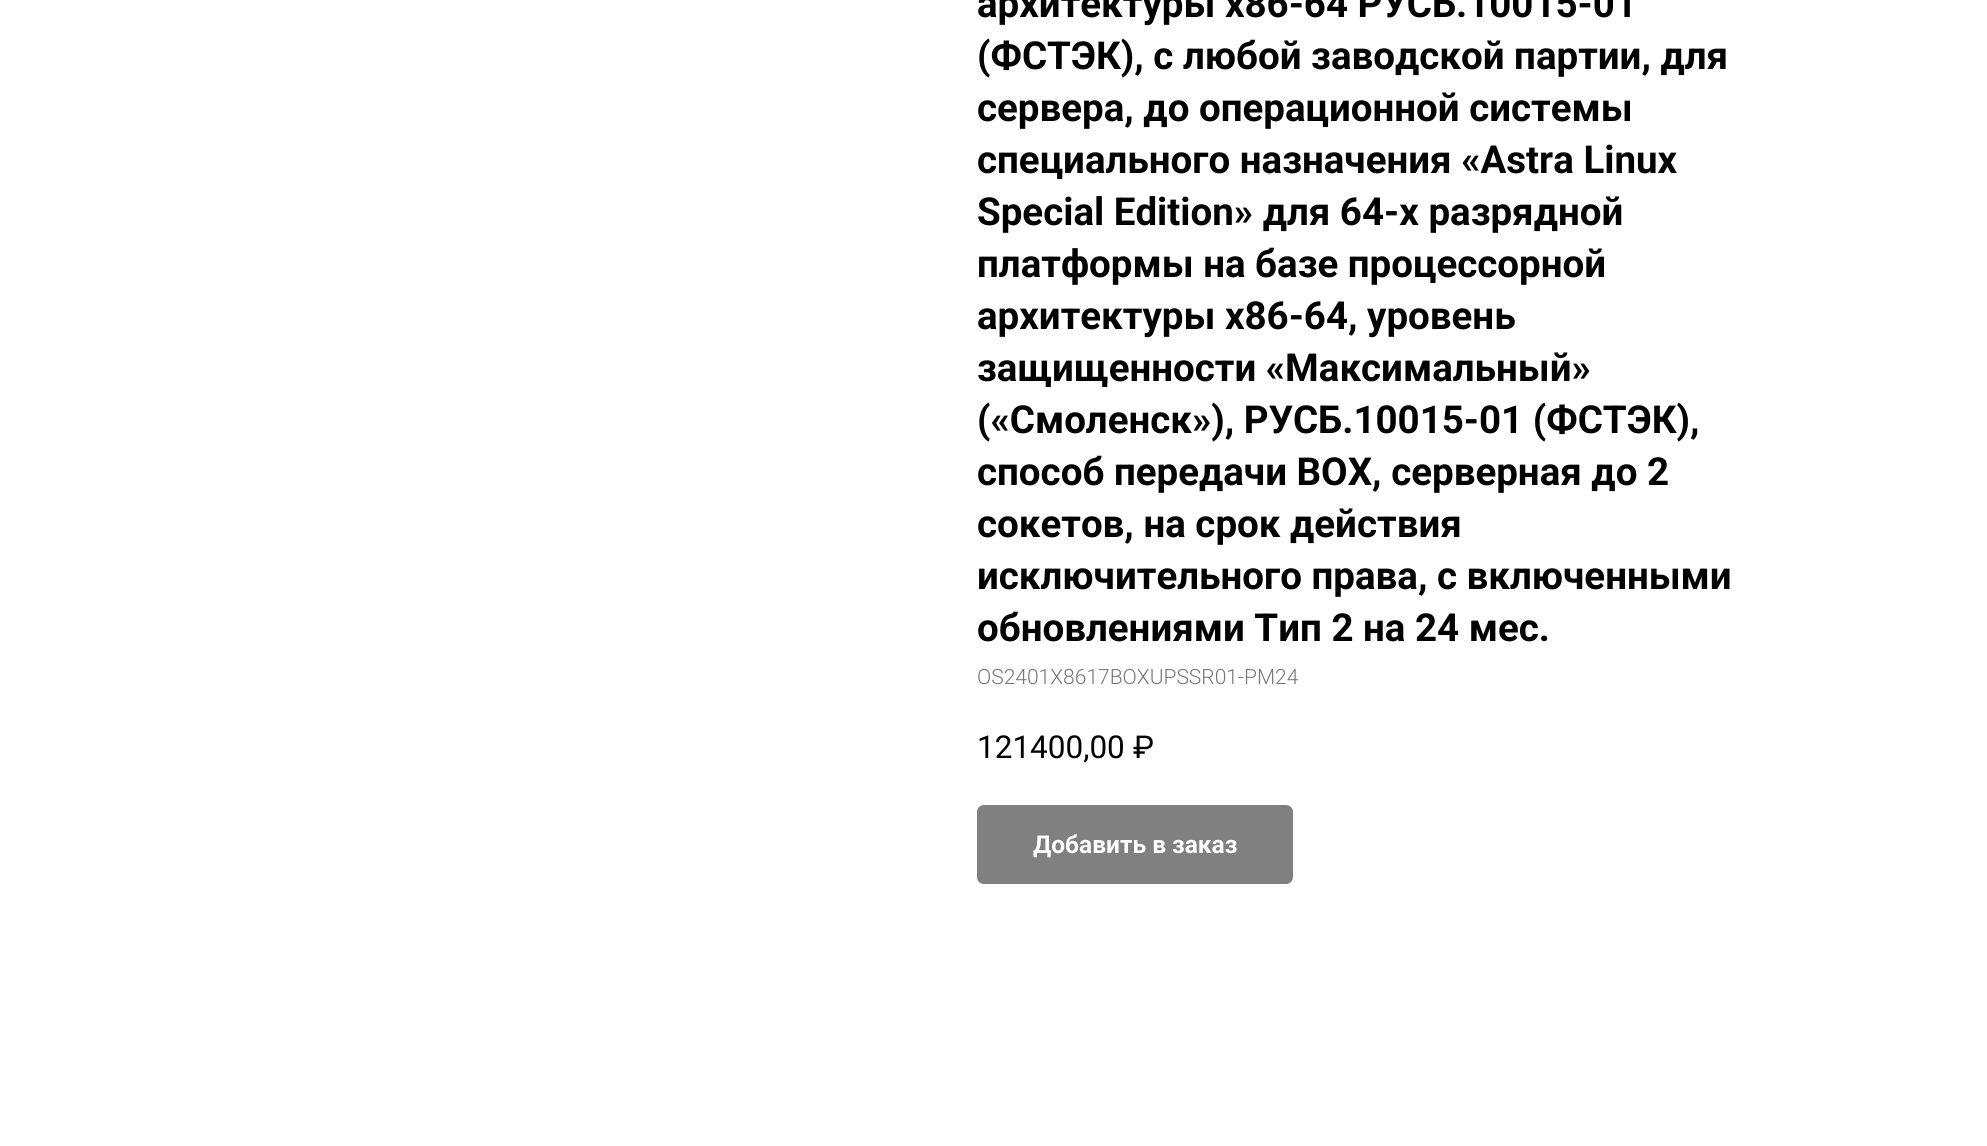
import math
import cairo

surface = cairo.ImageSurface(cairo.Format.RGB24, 1987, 1146)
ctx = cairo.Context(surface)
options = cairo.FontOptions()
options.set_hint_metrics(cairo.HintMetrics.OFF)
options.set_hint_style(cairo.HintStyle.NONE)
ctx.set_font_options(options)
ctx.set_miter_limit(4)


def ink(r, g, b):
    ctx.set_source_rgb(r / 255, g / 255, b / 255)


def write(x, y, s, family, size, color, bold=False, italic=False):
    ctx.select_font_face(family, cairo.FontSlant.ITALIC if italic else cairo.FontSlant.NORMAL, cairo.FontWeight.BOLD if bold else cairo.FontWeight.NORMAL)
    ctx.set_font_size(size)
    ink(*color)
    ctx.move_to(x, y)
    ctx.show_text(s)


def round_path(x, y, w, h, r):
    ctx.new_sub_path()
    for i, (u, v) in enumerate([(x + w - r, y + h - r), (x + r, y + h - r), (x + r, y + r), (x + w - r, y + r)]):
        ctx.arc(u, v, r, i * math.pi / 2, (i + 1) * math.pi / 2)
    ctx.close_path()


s1 = dict(family="Roboto", size=38.5, color=(0, 0, 0), bold=True)
s2 = dict(family="Roboto Light", size=21, color=(119, 119, 119))
s3 = dict(family="Roboto", size=31.5, color=(0, 0, 0))
s4 = dict(family="Roboto", size=24.5, color=(255, 255, 255), bold=True)

ink(255, 255, 255)
ctx.paint()
write(977, 17, "архитектуры x86-64 РУСБ.10015-01", **s1)
write(977, 69, "(ФСТЭК), с любой заводской партии, для", **s1)
write(977, 121, "сервера, до операционной системы", **s1)
write(977, 173, "специального назначения «Astra Linux", **s1)
write(977, 225, "Special Edition» для 64-х разрядной", **s1)
write(977, 277, "платформы на базе процессорной", **s1)
write(977, 329, "архитектуры х86-64, уровень", **s1)
write(977, 381, "защищенности «Максимальный»", **s1)
write(977, 433, "(«Смоленск»), РУСБ.10015-01 (ФСТЭК),", **s1)
write(977, 485, "способ передачи BOX, серверная до 2", **s1)
write(977, 537, "сокетов, на срок действия", **s1)
write(977, 589, "исключительного права, с включенными", **s1)
write(977, 641, "обновлениями Тип 2 на 24 мес.", **s1)
write(977, 684, "OS2401X8617BOXUPSSR01-PM24", **s2)
write(977, 758, "121400,00", **s3)
write(1133, 758, "₽", **s3)
ink(128, 128, 128)
round_path(977, 805, 316, 79, 7)
ctx.fill()
write(1033, 853, "Добавить в заказ", **s4)
surface.write_to_png("screenshot.png")
